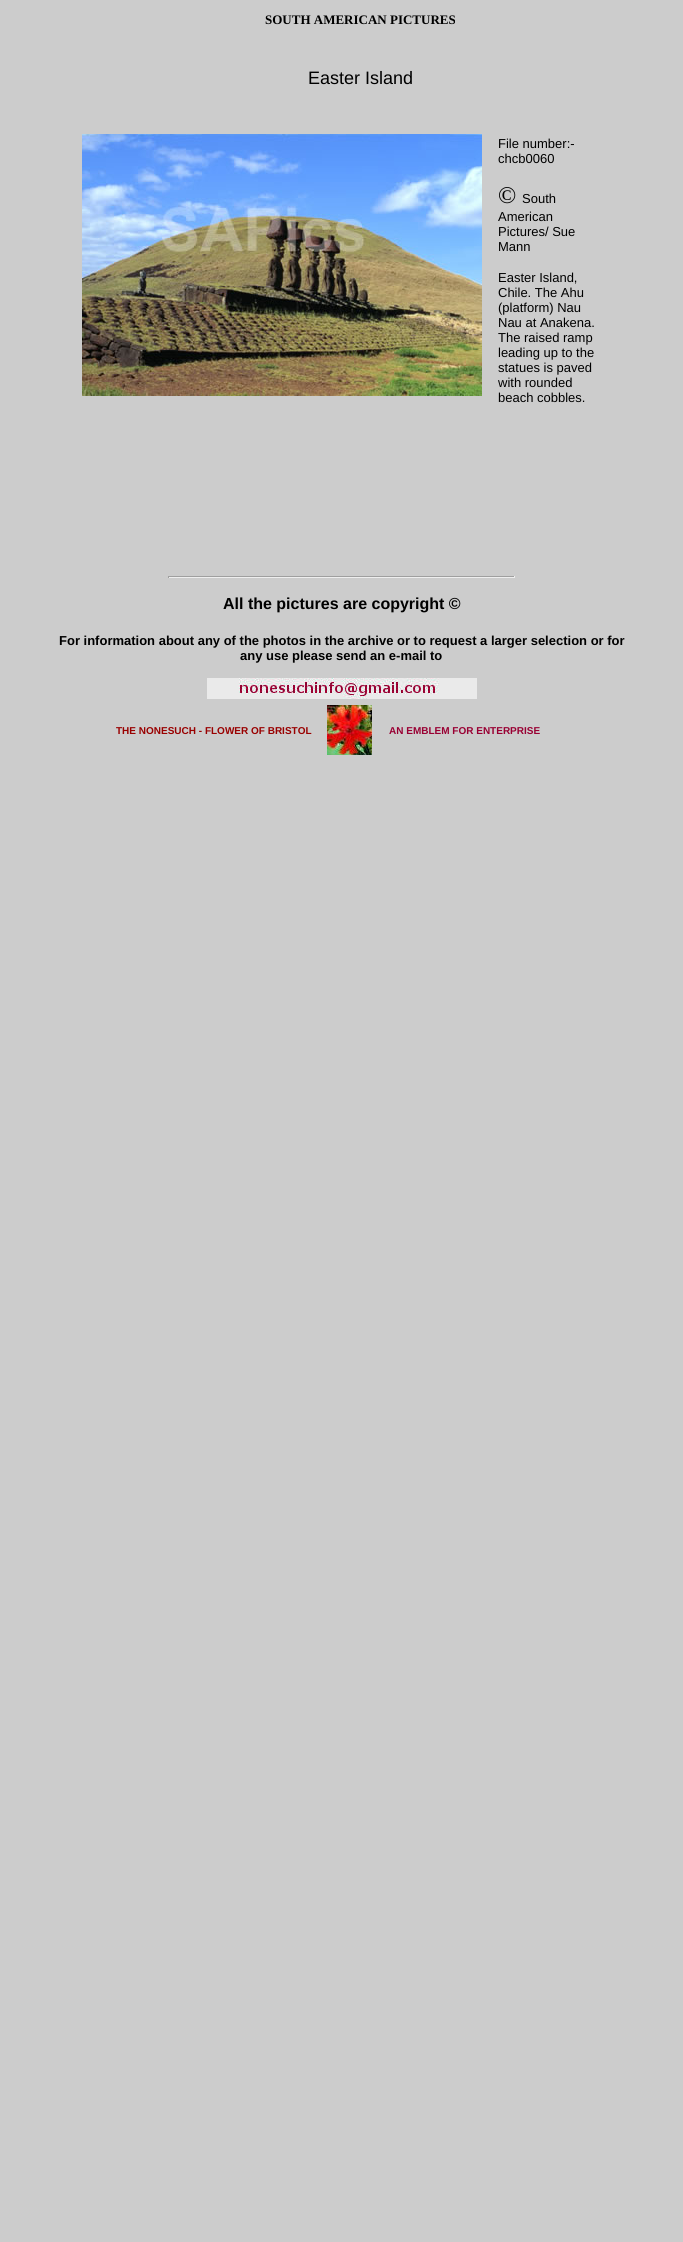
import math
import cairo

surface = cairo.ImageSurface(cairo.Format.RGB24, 683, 2242)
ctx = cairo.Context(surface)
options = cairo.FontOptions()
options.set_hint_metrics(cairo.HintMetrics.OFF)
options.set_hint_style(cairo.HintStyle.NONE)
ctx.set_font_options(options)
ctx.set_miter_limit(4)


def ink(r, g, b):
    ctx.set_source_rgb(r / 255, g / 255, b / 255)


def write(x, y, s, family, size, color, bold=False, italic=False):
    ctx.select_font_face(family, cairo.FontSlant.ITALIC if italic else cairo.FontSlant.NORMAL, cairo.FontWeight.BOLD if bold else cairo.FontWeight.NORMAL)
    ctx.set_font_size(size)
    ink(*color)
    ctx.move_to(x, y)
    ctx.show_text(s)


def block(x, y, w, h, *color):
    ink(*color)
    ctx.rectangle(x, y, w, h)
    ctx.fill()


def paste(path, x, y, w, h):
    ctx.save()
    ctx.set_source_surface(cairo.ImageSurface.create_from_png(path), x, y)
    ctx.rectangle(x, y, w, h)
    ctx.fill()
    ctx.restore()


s1 = dict(family="Liberation Serif", size=13, color=(0, 0, 0), bold=True)
s2 = dict(family="Liberation Sans", size=18, color=(0, 0, 0))
s3 = dict(family="Liberation Sans", size=13, color=(0, 0, 0))
s4 = dict(family="Liberation Serif", size=24, color=(0, 0, 0))
s5 = dict(family="Liberation Sans", size=16, color=(0, 0, 0), bold=True)
s6 = dict(family="Liberation Sans", size=13, color=(0, 0, 0), bold=True)
s7 = dict(family="Liberation Sans", size=10, color=(153, 0, 0), bold=True)
s8 = dict(family="Liberation Sans", size=10, color=(153, 0, 51), bold=True)

ink(204, 204, 204)
ctx.paint()
write(265, 24, "SOUTH AMERICAN PICTURES", **s1)
write(308, 84, "Easter Island", **s2)
paste("pic1.png", 82, 134, 400, 262)
write(498, 148, "File number:-", **s3)
write(498, 163, "chcb0060", **s3)
write(498, 203, "©", **s4)
write(522, 203, "South", **s3)
write(498, 221, "American", **s3)
write(498, 236, "Pictures/ Sue", **s3)
write(498, 251, "Mann", **s3)
write(498, 282, "Easter Island,", **s3)
write(498, 297, "Chile. The Ahu", **s3)
write(498, 312, "(platform) Nau", **s3)
write(498, 327, "Nau at Anakena.", **s3)
write(498, 342, "The raised ramp", **s3)
write(498, 357, "leading up to the", **s3)
write(498, 372, "statues is paved", **s3)
write(498, 387, "with rounded", **s3)
write(498, 402, "beach cobbles.", **s3)
block(168, 576, 347, 1, 159, 159, 159)
block(514, 576, 1, 2, 238, 238, 238)
block(168, 577, 347, 1, 238, 238, 238)
block(168, 576, 1, 2, 159, 159, 159)
write(223, 609, "All the pictures are copyright ©", **s5)
write(59, 645, "For information about any of the photos in the archive or to request a larger selection or for", **s6)
write(240, 660, "any use please send an e-mail to", **s6)
paste("pic2.png", 207, 678, 270, 21)
write(116, 734, "THE NONESUCH - FLOWER OF BRISTOL", **s7)
paste("pic3.png", 327, 705, 45, 50)
write(389, 734, "AN EMBLEM FOR ENTERPRISE", **s8)
surface.write_to_png("screenshot.png")
